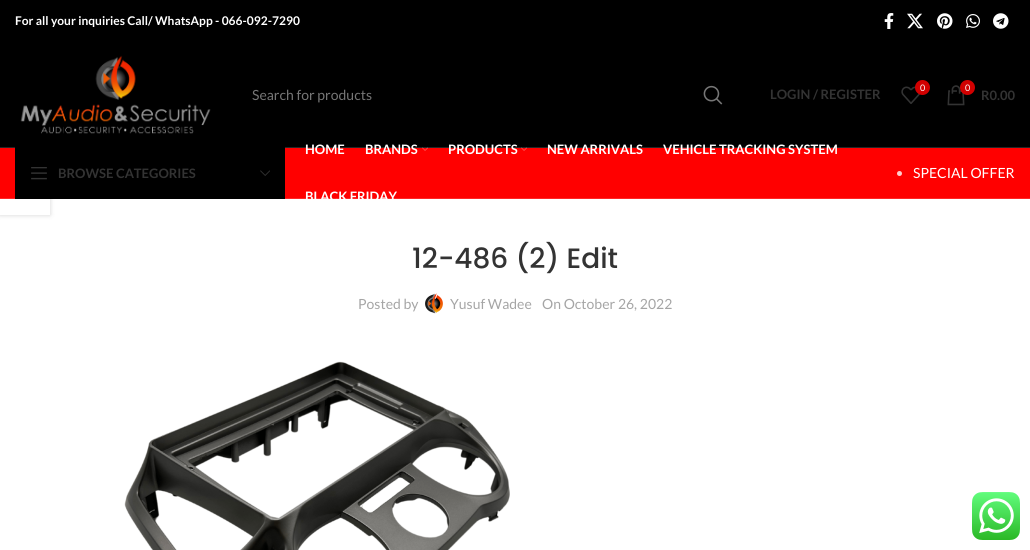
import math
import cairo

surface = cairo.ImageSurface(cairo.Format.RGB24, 1030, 550)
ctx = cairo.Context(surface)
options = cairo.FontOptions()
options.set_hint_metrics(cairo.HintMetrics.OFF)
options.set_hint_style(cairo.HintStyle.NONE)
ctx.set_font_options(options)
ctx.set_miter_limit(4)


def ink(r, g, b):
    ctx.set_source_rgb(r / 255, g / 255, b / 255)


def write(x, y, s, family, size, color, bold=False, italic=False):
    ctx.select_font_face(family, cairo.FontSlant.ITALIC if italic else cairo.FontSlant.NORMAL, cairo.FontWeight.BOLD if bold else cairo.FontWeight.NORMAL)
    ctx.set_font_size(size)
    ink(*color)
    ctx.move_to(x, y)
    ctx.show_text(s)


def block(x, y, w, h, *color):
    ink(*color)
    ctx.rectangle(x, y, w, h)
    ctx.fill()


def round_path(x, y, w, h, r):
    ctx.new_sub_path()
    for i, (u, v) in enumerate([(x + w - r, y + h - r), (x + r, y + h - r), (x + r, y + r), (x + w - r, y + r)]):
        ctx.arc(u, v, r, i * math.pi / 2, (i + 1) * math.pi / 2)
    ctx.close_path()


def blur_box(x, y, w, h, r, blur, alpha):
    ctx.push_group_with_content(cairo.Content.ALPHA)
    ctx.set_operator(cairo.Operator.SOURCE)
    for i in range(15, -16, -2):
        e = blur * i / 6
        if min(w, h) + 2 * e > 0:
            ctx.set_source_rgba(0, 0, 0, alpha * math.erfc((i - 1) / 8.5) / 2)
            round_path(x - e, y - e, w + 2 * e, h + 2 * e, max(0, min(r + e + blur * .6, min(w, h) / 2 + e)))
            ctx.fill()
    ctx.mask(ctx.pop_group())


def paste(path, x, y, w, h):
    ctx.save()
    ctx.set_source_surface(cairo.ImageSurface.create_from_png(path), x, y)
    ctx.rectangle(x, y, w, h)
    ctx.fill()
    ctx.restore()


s1 = dict(family="Lato", size=12, color=(255, 255, 255), bold=True)
s2 = dict(family="Lato", size=14, color=(118, 118, 118))
s3 = dict(family="Lato", size=13, color=(51, 51, 51), bold=True)
s4 = dict(family="Lato", size=9, color=(255, 255, 255))
s5 = dict(family="Lato", size=13, color=(255, 255, 255), bold=True)
s6 = dict(family="Lato", size=14, color=(255, 255, 255))
s7 = dict(family="Poppins Medium", size=28, color=(51, 51, 51))
s8 = dict(family="Lato", size=14, color=(165, 165, 165))

ink(255, 255, 255)
ctx.paint()
block(0, 0, 1030, 147, 0, 0, 0)
write(15, 25, "For all your inquiries Call/ WhatsApp - 066-092-7290", **s1)
paste("pic1.png", 884, 13, 10, 16)
paste("pic2.png", 907, 13, 16, 16)
paste("pic3.png", 937, 13, 16, 16)
paste("pic4.png", 966, 14, 14, 14)
paste("pic5.png", 993, 13, 16, 16)
block(0, 147, 1030, 1, 38, 38, 38)
paste("pic6.png", 20, 55, 191, 79)
write(252, 100, "Search for products", **s2)
paste("pic7.png", 703, 85, 20, 20)
write(770, 99, "LOGIN / REGISTER", **s3)
paste("pic8.png", 901, 86, 20, 18)
ink(209, 0, 0)
ctx.arc(922.5, 87.5, 7.5, 0, 2 * math.pi)
ctx.fill()
write(920, 91, "0", **s4)
paste("pic9.png", 947, 85, 18, 21)
ink(209, 0, 0)
ctx.arc(967.5, 87.5, 7.5, 0, 2 * math.pi)
ctx.fill()
write(965, 91, "0", **s4)
write(981, 100, "R0.00", **s3)
ctx.save()
ctx.set_fill_rule(cairo.FillRule.EVEN_ODD)
ctx.new_path()
ctx.move_to(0, 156)
ctx.line_to(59, 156)
ctx.line_to(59, 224)
ctx.line_to(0, 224)
ctx.close_path()
ctx.move_to(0, 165)
ctx.line_to(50, 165)
ctx.line_to(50, 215)
ctx.line_to(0, 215)
ctx.close_path()
ctx.clip()
ink(0, 0, 0)
blur_box(0, 165, 50, 50, 0, 2.5, 0.17)
ctx.restore()
block(0, 148, 1030, 50, 255, 0, 0)
block(0, 198, 1030, 1, 255, 38, 38)
block(15, 147, 270, 52, 0, 0, 0)
paste("pic10.png", 31, 167, 16, 13)
write(58, 178, "BROWSE CATEGORIES", **s3)
paste("pic11.png", 260, 170, 10, 6)
write(305, 154, "HOME", **s5)
write(365, 154, "BRANDS", **s5)
paste("pic12.png", 422, 147, 6, 4)
write(448, 154, "PRODUCTS", **s5)
paste("pic12.png", 521, 147, 6, 4)
write(547, 154, "NEW ARRIVALS", **s5)
write(663, 154, "VEHICLE TRACKING SYSTEM", **s5)
write(305, 201, "BLACK FRIDAY", **s5)
ink(255, 204, 204)
ctx.new_path()
ctx.arc(899.5, 173.5, 2.5, 0, 2 * math.pi)
ctx.fill()
write(913, 178, "SPECIAL OFFER", **s6)
write(412, 268, "12-486 (2) Edit", **s7)
write(358, 309, "Posted by", **s8)
paste("pic13.png", 425, 293, 18, 21)
write(450, 309, "Yusuf Wadee", **s8)
write(542, 309, "On October 26, 2022", **s8)
paste("pic14.png", 124, 361, 386, 189)
paste("pic15.png", 972, 492, 48, 48)
surface.write_to_png("screenshot.png")
